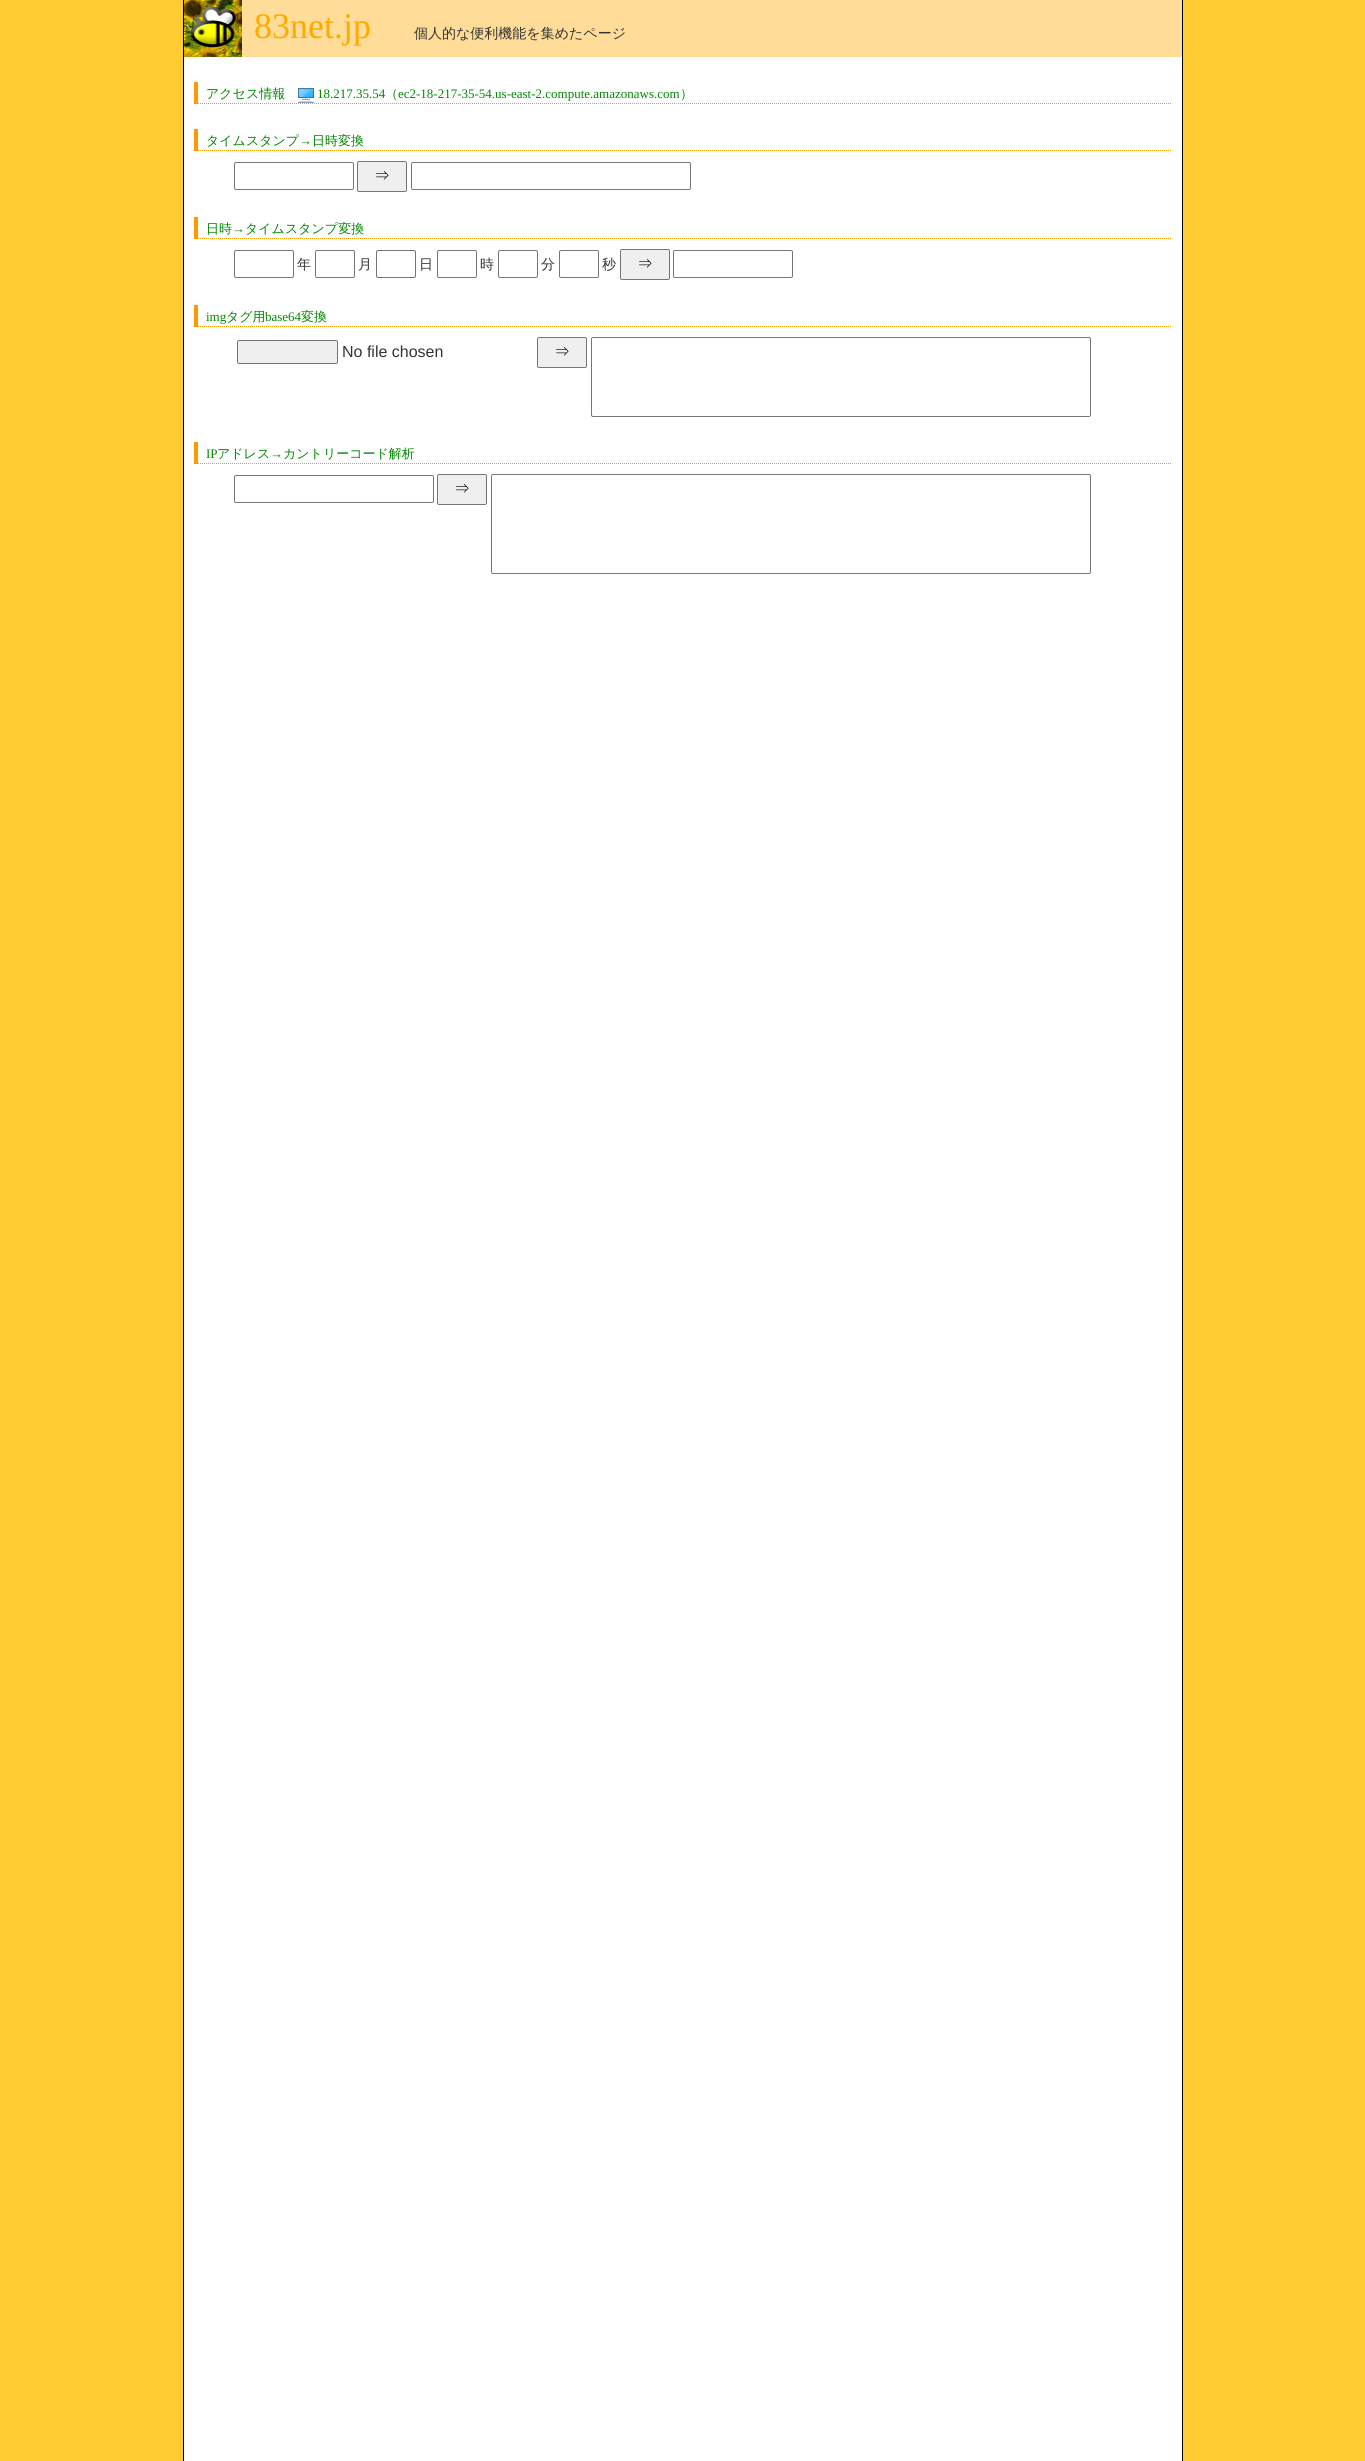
import math
import cairo

surface = cairo.ImageSurface(cairo.Format.RGB24, 1365, 2461)
ctx = cairo.Context(surface)
options = cairo.FontOptions()
options.set_hint_metrics(cairo.HintMetrics.OFF)
options.set_hint_style(cairo.HintStyle.NONE)
ctx.set_font_options(options)
ctx.set_miter_limit(4)


def ink(r, g, b):
    ctx.set_source_rgb(r / 255, g / 255, b / 255)


def write(x, y, s, family, size, color, bold=False, italic=False):
    ctx.select_font_face(family, cairo.FontSlant.ITALIC if italic else cairo.FontSlant.NORMAL, cairo.FontWeight.BOLD if bold else cairo.FontWeight.NORMAL)
    ctx.set_font_size(size)
    ink(*color)
    ctx.move_to(x, y)
    ctx.show_text(s)


def block(x, y, w, h, *color):
    ink(*color)
    ctx.rectangle(x, y, w, h)
    ctx.fill()


def round_path(x, y, w, h, r):
    ctx.new_sub_path()
    for i, (u, v) in enumerate([(x + w - r, y + h - r), (x + r, y + h - r), (x + r, y + r), (x + w - r, y + r)]):
        ctx.arc(u, v, r, i * math.pi / 2, (i + 1) * math.pi / 2)
    ctx.close_path()


def paste(path, x, y, w, h):
    ctx.save()
    ctx.set_source_surface(cairo.ImageSurface.create_from_png(path), x, y)
    ctx.rectangle(x, y, w, h)
    ctx.fill()
    ctx.restore()


s1 = dict(family="Liberation Serif", size=36, color=(255, 170, 0))
s2 = dict(family="WenQuanYi Zen Hei Medium", size=14, color=(51, 51, 51))
s3 = dict(family="WenQuanYi Zen Hei Medium", size=13, color=(0, 136, 0))
s4 = dict(family="Liberation Serif", size=13, color=(0, 136, 0))
s5 = dict(family="WenQuanYi Zen Hei Medium", size=16, color=(0, 0, 0))
s6 = dict(family="Liberation Sans", size=16, color=(51, 51, 51))

ink(255, 204, 51)
ctx.paint()
block(184, 57, 998, 2404, 255, 255, 255)
block(1182, 0, 1, 2461, 0, 0, 0)
block(183, 0, 1, 2461, 0, 0, 0)
block(242, 0, 940, 57, 255, 221, 153)
paste("pic1.png", 184, 0, 58, 57)
write(254, 38, "83net.jp", **s1)
write(414, 38, "個人的な便利機能を集めたページ", **s2)
ctx.new_path()
ctx.move_to(194, 103.5)
ctx.line_to(1172, 103.5)
ink(255, 153, 0)
ctx.set_line_width(1)
ctx.set_dash([1, 1])
ctx.stroke()
block(194, 82, 4, 22, 255, 153, 0)
write(206, 98, "アクセス情報", **s3)
paste("pic2.png", 298, 88, 16, 15)
write(317, 98, "18.217.35.54", **s4)
write(385, 98, "（", **s3)
write(398, 98, "ec2-18-217-35-54.us-east-2.compute.amazonaws.com", **s4)
write(680, 98, "）", **s3)
ctx.new_path()
ctx.move_to(194, 150.5)
ctx.line_to(1172, 150.5)
ink(255, 153, 0)
ctx.stroke()
block(194, 129, 4, 22, 255, 153, 0)
write(206, 145, "タイムスタンプ", **s3)
write(299, 145, "→", **s4)
write(312, 145, "日時変換", **s3)
round_path(234.5, 162.5, 119, 27, 1.5)
ink(118, 118, 118)
ctx.set_dash([])
ctx.stroke()
ink(239, 239, 239)
round_path(357.5, 161.5, 49, 30, 1.5)
ctx.fill_preserve()
ink(118, 118, 118)
ctx.stroke()
write(374, 181, "⇒", **s5)
round_path(411.5, 162.5, 279, 27, 1.5)
ink(118, 118, 118)
ctx.stroke()
ctx.new_path()
ctx.move_to(194, 238.5)
ctx.line_to(1172, 238.5)
ink(255, 153, 0)
ctx.set_dash([1, 1])
ctx.stroke()
block(194, 217, 4, 22, 255, 153, 0)
write(206, 233, "日時", **s3)
write(232, 233, "→", **s4)
write(245, 233, "タイムスタンプ変換", **s3)
round_path(234.5, 250.5, 59, 27, 1.5)
ink(118, 118, 118)
ctx.set_dash([])
ctx.stroke()
write(297, 269, "年", **s2)
round_path(315.5, 250.5, 39, 27, 1.5)
ink(118, 118, 118)
ctx.stroke()
write(358, 269, "月", **s2)
round_path(376.5, 250.5, 39, 27, 1.5)
ink(118, 118, 118)
ctx.stroke()
write(419, 269, "日", **s2)
round_path(437.5, 250.5, 39, 27, 1.5)
ink(118, 118, 118)
ctx.stroke()
write(480, 269, "時", **s2)
round_path(498.5, 250.5, 39, 27, 1.5)
ink(118, 118, 118)
ctx.stroke()
write(541, 269, "分", **s2)
round_path(559.5, 250.5, 39, 27, 1.5)
ink(118, 118, 118)
ctx.stroke()
write(602, 269, "秒", **s2)
ink(239, 239, 239)
round_path(620.5, 249.5, 49, 30, 1.5)
ctx.fill_preserve()
ink(118, 118, 118)
ctx.stroke()
write(637, 269, "⇒", **s5)
round_path(673.5, 250.5, 119, 27, 1.5)
ink(118, 118, 118)
ctx.stroke()
ctx.new_path()
ctx.move_to(194, 326.5)
ctx.line_to(1172, 326.5)
ink(255, 153, 0)
ctx.set_dash([1, 1])
ctx.stroke()
block(194, 305, 4, 22, 255, 153, 0)
write(206, 321, "img", **s4)
write(226, 321, "タグ用", **s3)
write(265, 321, "base64", **s4)
write(301, 321, "変換", **s3)
ink(239, 239, 239)
round_path(237.5, 340.5, 100, 23, 1.5)
ctx.fill_preserve()
ink(118, 118, 118)
ctx.set_dash([])
ctx.stroke()
write(342, 357, "No file chosen", **s6)
ink(239, 239, 239)
round_path(537.5, 337.5, 49, 30, 1.5)
ctx.fill_preserve()
ink(118, 118, 118)
ctx.stroke()
write(554, 357, "⇒", **s5)
round_path(591.5, 337.5, 499, 79, 1.5)
ink(118, 118, 118)
ctx.stroke()
ctx.new_path()
ctx.move_to(194, 463.5)
ctx.line_to(1172, 463.5)
ink(255, 153, 0)
ctx.set_dash([1, 1])
ctx.stroke()
block(194, 442, 4, 22, 255, 153, 0)
write(206, 458, "IP", **s4)
write(217, 458, "アドレス", **s3)
write(270, 458, "→", **s4)
write(283, 458, "カントリーコード解析", **s3)
round_path(234.5, 475.5, 199, 27, 1.5)
ink(118, 118, 118)
ctx.set_dash([])
ctx.stroke()
ink(239, 239, 239)
round_path(437.5, 474.5, 49, 30, 1.5)
ctx.fill_preserve()
ink(118, 118, 118)
ctx.stroke()
write(454, 494, "⇒", **s5)
round_path(491.5, 474.5, 599, 99, 1.5)
ink(118, 118, 118)
ctx.stroke()
surface.write_to_png("screenshot.png")
